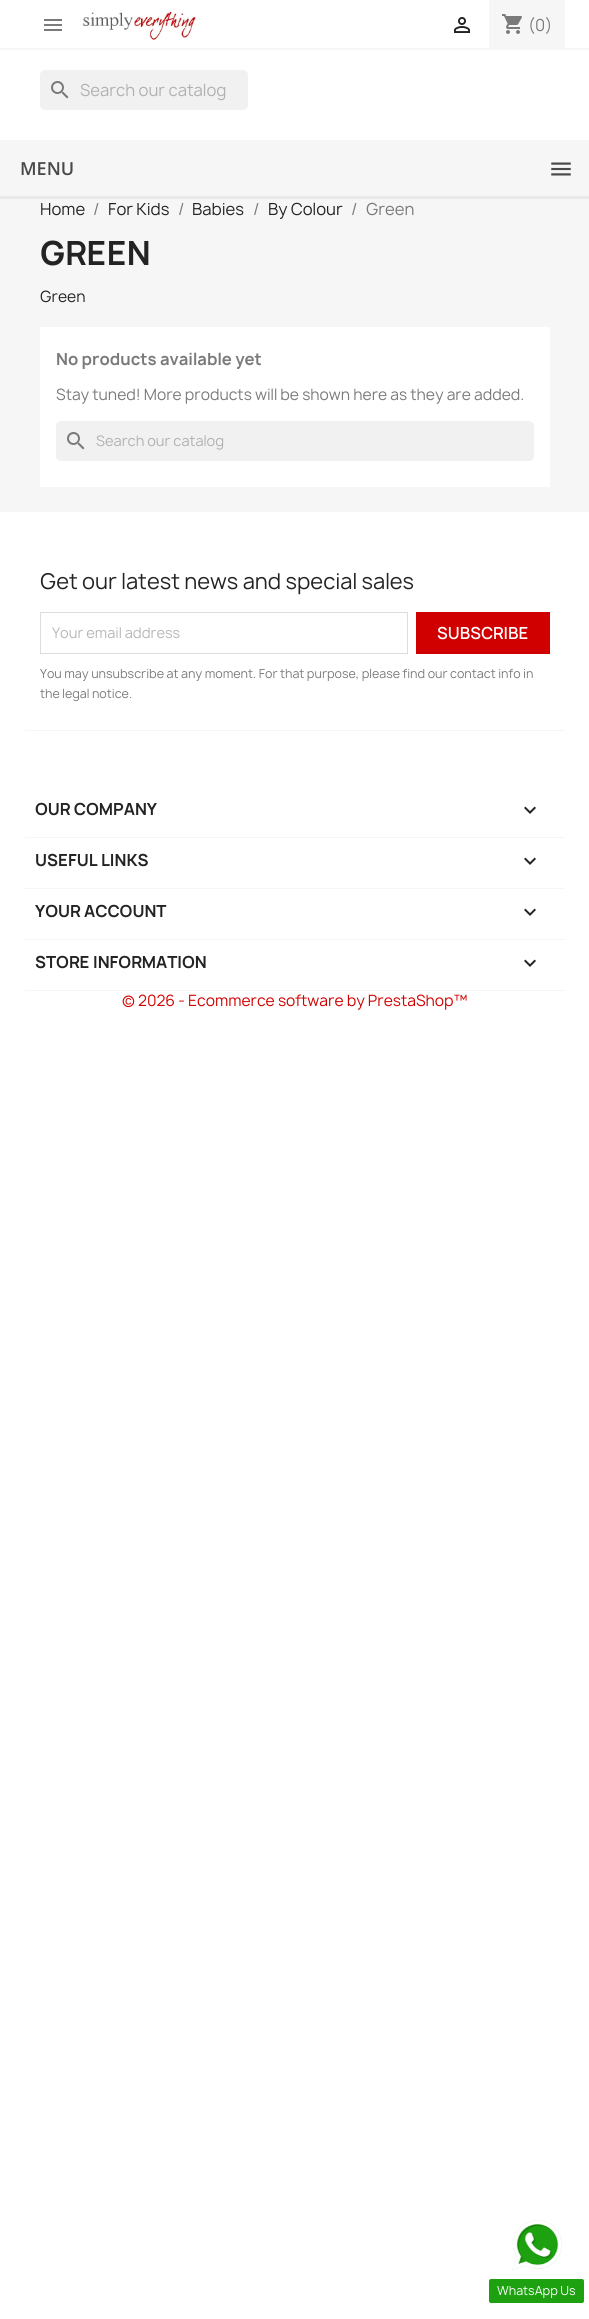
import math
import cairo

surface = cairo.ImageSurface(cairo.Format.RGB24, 589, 2319)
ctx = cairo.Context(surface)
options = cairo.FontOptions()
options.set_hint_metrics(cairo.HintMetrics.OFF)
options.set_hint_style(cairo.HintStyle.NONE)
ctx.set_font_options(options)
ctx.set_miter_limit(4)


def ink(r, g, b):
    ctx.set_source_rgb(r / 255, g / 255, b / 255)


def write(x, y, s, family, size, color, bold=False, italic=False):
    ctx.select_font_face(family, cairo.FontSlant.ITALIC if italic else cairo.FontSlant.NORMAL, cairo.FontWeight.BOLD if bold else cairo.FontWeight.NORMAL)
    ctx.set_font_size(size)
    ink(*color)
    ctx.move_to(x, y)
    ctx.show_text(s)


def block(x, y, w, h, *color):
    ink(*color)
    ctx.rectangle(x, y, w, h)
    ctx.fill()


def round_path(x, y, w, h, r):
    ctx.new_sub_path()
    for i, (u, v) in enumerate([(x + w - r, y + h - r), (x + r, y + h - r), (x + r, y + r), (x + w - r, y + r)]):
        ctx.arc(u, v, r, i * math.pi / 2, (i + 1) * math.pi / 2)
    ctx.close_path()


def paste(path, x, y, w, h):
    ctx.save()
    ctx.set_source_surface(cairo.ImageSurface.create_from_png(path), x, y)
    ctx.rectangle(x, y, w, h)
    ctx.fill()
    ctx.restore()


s1 = dict(family="Manrope", size=16, color=(122, 122, 122))
s2 = dict(family="Manrope", size=16, color=(177, 177, 177))
s3 = dict(family="Open Sans SemiBold", size=18, color=(72, 72, 72))
s4 = dict(family="Manrope", size=16, color=(35, 35, 35))
s5 = dict(family="Manrope", size=32, color=(35, 35, 35), bold=True)
s6 = dict(family="Manrope", size=15, color=(35, 35, 35))
s7 = dict(family="Manrope", size=16, color=(122, 122, 122), bold=True)
s8 = dict(family="Manrope", size=15, color=(122, 122, 122))
s9 = dict(family="Manrope", size=14, color=(177, 177, 177))
s10 = dict(family="Manrope", size=21, color=(35, 35, 35))
s11 = dict(family="Manrope", size=14, color=(183, 183, 183))
s12 = dict(family="Manrope SemiBold", size=16, color=(255, 255, 255))
s13 = dict(family="Manrope", size=12, color=(122, 122, 122))
s14 = dict(family="Manrope", size=16, color=(35, 35, 35), bold=True)
s15 = dict(family="Manrope", size=12, color=(255, 255, 255))
s16 = dict(family="Manrope", size=15, color=(209, 0, 0))

ink(255, 255, 255)
ctx.paint()
block(0, 48, 589, 2, 246, 246, 246)
paste("pic1.png", 44, 19, 18, 12)
paste("pic2.png", 83, 11, 113, 29)
paste("pic3.png", 454, 17, 16, 16)
block(489, 0, 76, 48, 246, 246, 246)
paste("pic4.png", 502, 14, 20, 20)
write(528, 31, "(0)", **s1)
ink(241, 241, 241)
round_path(40, 70, 208, 40, 5)
ctx.fill()
paste("pic5.png", 51, 81, 18, 18)
write(80, 96, "Search our catalog", **s2)
block(0, 140, 589, 56, 246, 246, 246)
block(0, 196, 589, 3, 233, 233, 233)
write(20, 175, "MENU", **s3)
paste("pic6.png", 551, 162, 20, 14)
block(0, 199, 589, 313, 246, 246, 246)
write(40, 215, "Home", **s4)
write(93, 215, "/", **s1)
write(108, 215, "For Kids", **s4)
write(178, 215, "/", **s1)
write(192, 215, "Babies", **s4)
write(253, 215, "/", **s1)
write(268, 215, "By Colour", **s4)
write(351, 215, "/", **s1)
write(366, 215, "Green", **s1)
write(40, 265, "GREEN", **s5)
write(40, 302, "Green", **s6)
block(40, 327, 510, 160, 255, 255, 255)
write(56, 365, "No products available yet", **s7)
write(56, 400, "Stay tuned! More products will be shown here as they are added.", **s8)
ink(241, 241, 241)
round_path(56, 421, 478, 40, 5)
ctx.fill()
paste("pic5.png", 67, 432, 18, 18)
write(96, 446, "Search our catalog", **s9)
block(25, 730, 540, 1, 246, 246, 246)
write(40, 589, "Get our latest news and special sales", **s10)
ctx.rectangle(40.5, 612.5, 367, 41)
ink(221, 221, 221)
ctx.set_line_width(1)
ctx.stroke()
write(52, 638, "Your email address", **s11)
block(416, 612, 134, 42, 209, 0, 0)
write(437, 639, "SUBSCRIBE", **s12)
write(40, 678, "You may unsubscribe at any moment. For that purpose, please find our contact info in", **s13)
write(40, 698, "the legal notice.", **s13)
block(25, 837, 540, 1, 246, 246, 246)
write(35, 815, "OUR COMPANY", **s14)
paste("pic7.png", 524, 806, 12, 8)
block(25, 888, 540, 1, 246, 246, 246)
write(35, 866, "USEFUL LINKS", **s14)
paste("pic7.png", 524, 857, 12, 8)
block(25, 939, 540, 1, 246, 246, 246)
write(35, 917, "YOUR ACCOUNT", **s14)
paste("pic7.png", 524, 908, 12, 8)
block(25, 990, 540, 1, 246, 246, 246)
write(35, 968, "STORE INFORMATION", **s14)
paste("pic7.png", 524, 959, 12, 8)
paste("pic8.png", 512, 2220, 50, 50)
ink(29, 161, 16)
round_path(489, 2279, 95, 24, 2)
ctx.fill()
write(497, 2295, "WhatsApp Us", **s15)
write(122, 1006, "© 2026 - Ecommerce software by PrestaShop™", **s16)
surface.write_to_png("screenshot.png")
